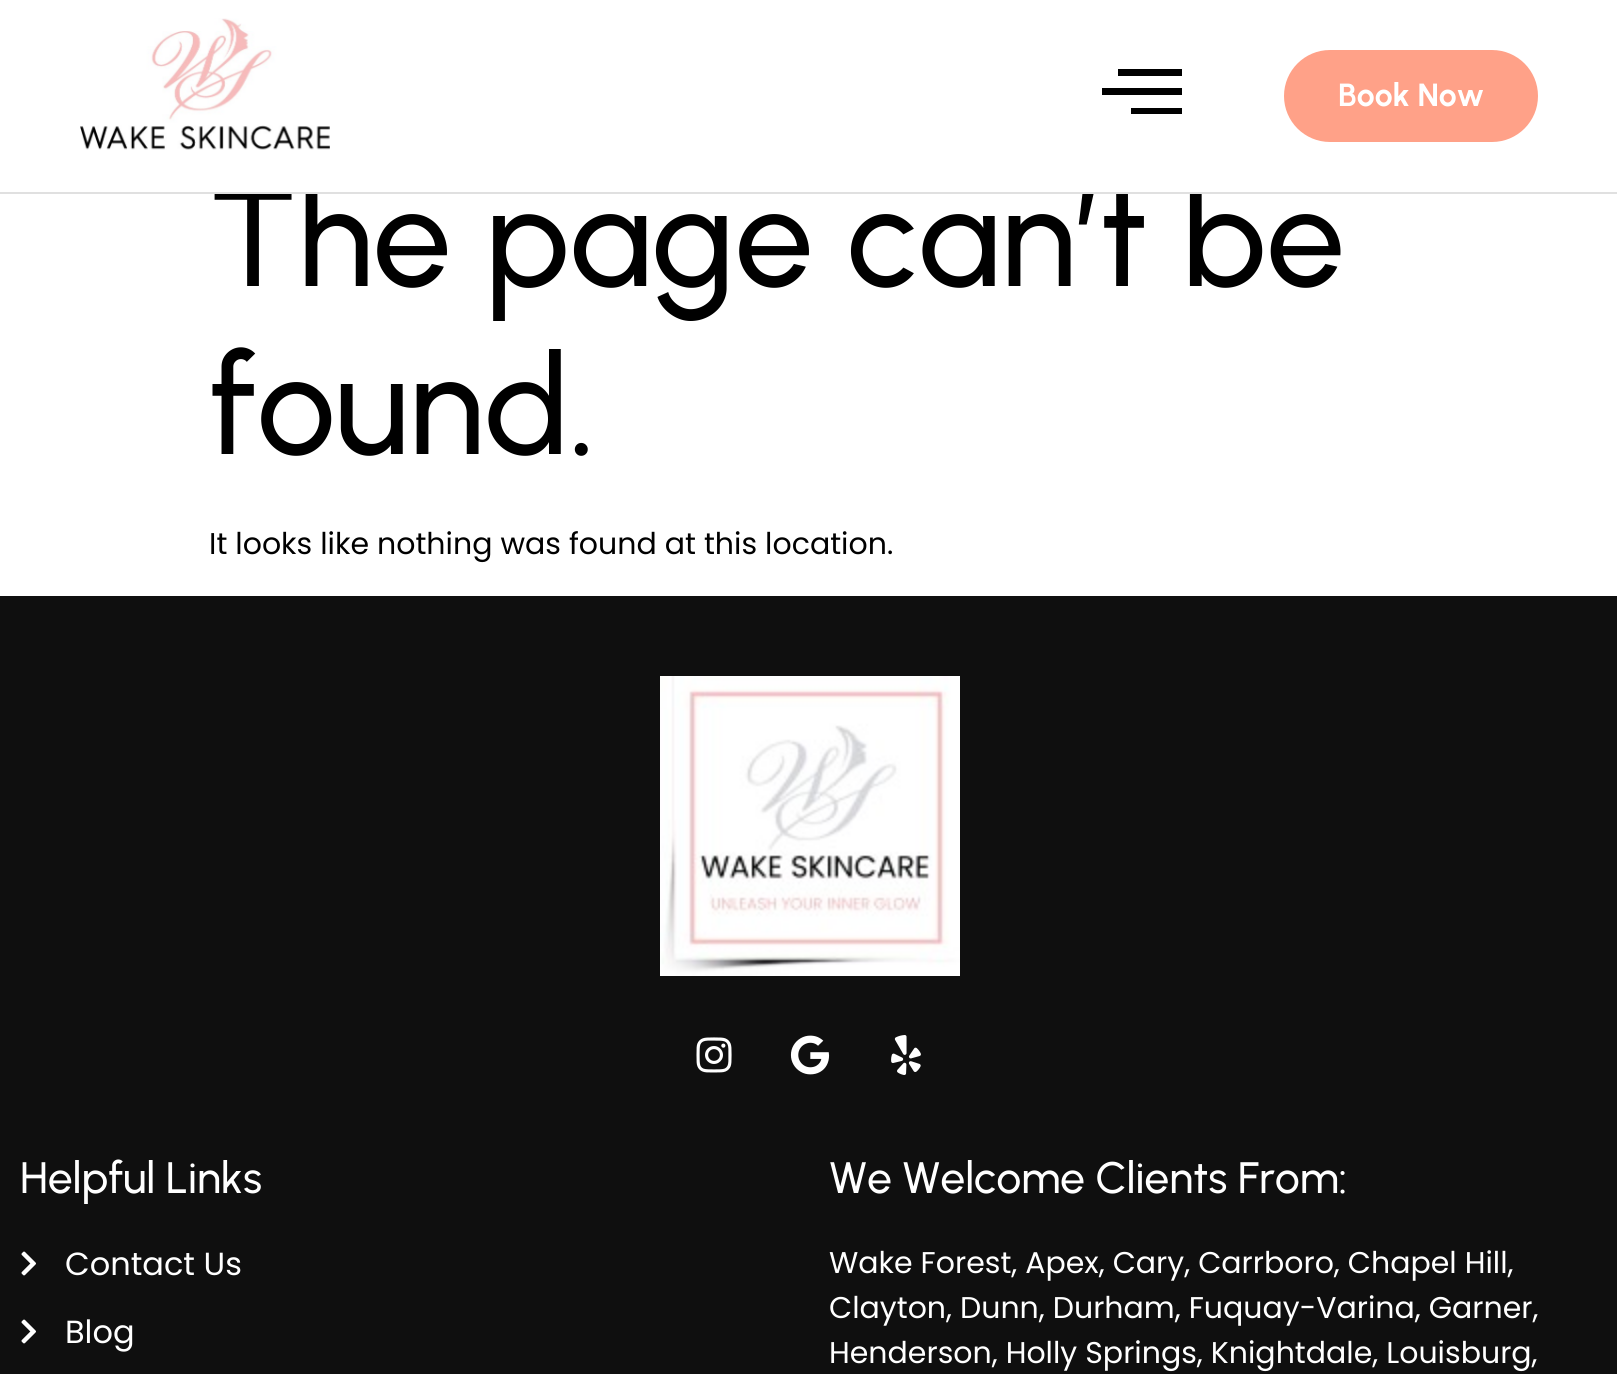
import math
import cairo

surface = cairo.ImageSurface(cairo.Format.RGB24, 1617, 1374)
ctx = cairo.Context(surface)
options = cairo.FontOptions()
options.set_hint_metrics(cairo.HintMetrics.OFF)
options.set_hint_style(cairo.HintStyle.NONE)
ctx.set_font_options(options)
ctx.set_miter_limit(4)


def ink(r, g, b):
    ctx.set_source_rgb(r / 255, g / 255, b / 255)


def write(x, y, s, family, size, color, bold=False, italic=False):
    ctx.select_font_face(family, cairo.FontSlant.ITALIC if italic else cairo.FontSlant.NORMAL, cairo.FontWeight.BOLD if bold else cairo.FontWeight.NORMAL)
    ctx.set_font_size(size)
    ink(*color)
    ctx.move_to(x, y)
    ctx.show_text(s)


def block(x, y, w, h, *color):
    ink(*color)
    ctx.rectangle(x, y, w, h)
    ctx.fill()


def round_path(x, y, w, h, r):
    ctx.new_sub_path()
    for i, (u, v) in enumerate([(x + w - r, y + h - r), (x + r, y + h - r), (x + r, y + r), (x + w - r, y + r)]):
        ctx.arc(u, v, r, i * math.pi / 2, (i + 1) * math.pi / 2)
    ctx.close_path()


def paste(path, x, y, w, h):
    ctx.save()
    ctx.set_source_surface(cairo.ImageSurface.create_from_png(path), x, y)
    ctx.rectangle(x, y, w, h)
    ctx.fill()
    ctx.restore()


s1 = dict(family="Urbanist Medium", size=140, color=(0, 0, 0))
s2 = dict(family="Urbanist", size=32, color=(255, 255, 255), bold=True)
s3 = dict(family="Poppins", size=30, color=(0, 0, 0))
s4 = dict(family="Urbanist Medium", size=44, color=(255, 255, 255))
s5 = dict(family="Poppins", size=32, color=(255, 255, 255))
s6 = dict(family="Poppins", size=30, color=(255, 255, 255))

ink(255, 255, 255)
ctx.paint()
write(209, 286, "The page can’t be", **s1)
block(214, 181, 988, 11, 255, 255, 255)
block(0, 192, 1617, 2, 224, 224, 224)
paste("pic1.png", 80, 18, 250, 132)
ink(0, 0, 0)
ctx.new_path()
ctx.move_to(1102, 95)
ctx.line_to(1182, 95)
ctx.line_to(1182, 88)
ctx.line_to(1102, 88)
ctx.close_path()
ctx.move_to(1131, 114)
ctx.line_to(1182, 114)
ctx.line_to(1182, 108)
ctx.line_to(1131, 108)
ctx.close_path()
ctx.move_to(1118, 69)
ctx.line_to(1118, 76)
ctx.line_to(1182, 76)
ctx.line_to(1182, 69)
ctx.close_path()
ctx.fill()
ink(255, 161, 136)
round_path(1287, 53, 248, 86, 43)
ctx.fill_preserve()
ctx.set_line_width(6)
ctx.stroke()
write(1338, 106, "Book Now", **s2)
write(209, 454, "found.", **s1)
write(209, 554, "It looks like nothing was found at this location.", **s3)
block(0, 596, 1617, 778, 15, 15, 15)
paste("pic2.png", 660, 676, 300, 300)
paste("pic3.png", 696, 1037, 36, 36)
paste("pic4.png", 790, 1035, 40, 40)
paste("pic5.png", 891, 1035, 30, 40)
write(20, 1193, "Helpful Links", **s4)
paste("pic6.png", 21, 1251, 15, 25)
write(65, 1275, "Contact Us", **s5)
paste("pic6.png", 21, 1319, 15, 25)
write(65, 1343, "Blog", **s5)
write(829, 1193, "We Welcome Clients From:", **s4)
write(829, 1273, "Wake Forest, Apex, Cary, Carrboro, Chapel Hill,", **s6)
write(829, 1318, "Clayton, Dunn, Durham, Fuquay-Varina, Garner,", **s6)
write(829, 1363, "Henderson, Holly Springs, Knightdale, Louisburg,", **s6)
surface.write_to_png("screenshot.png")
